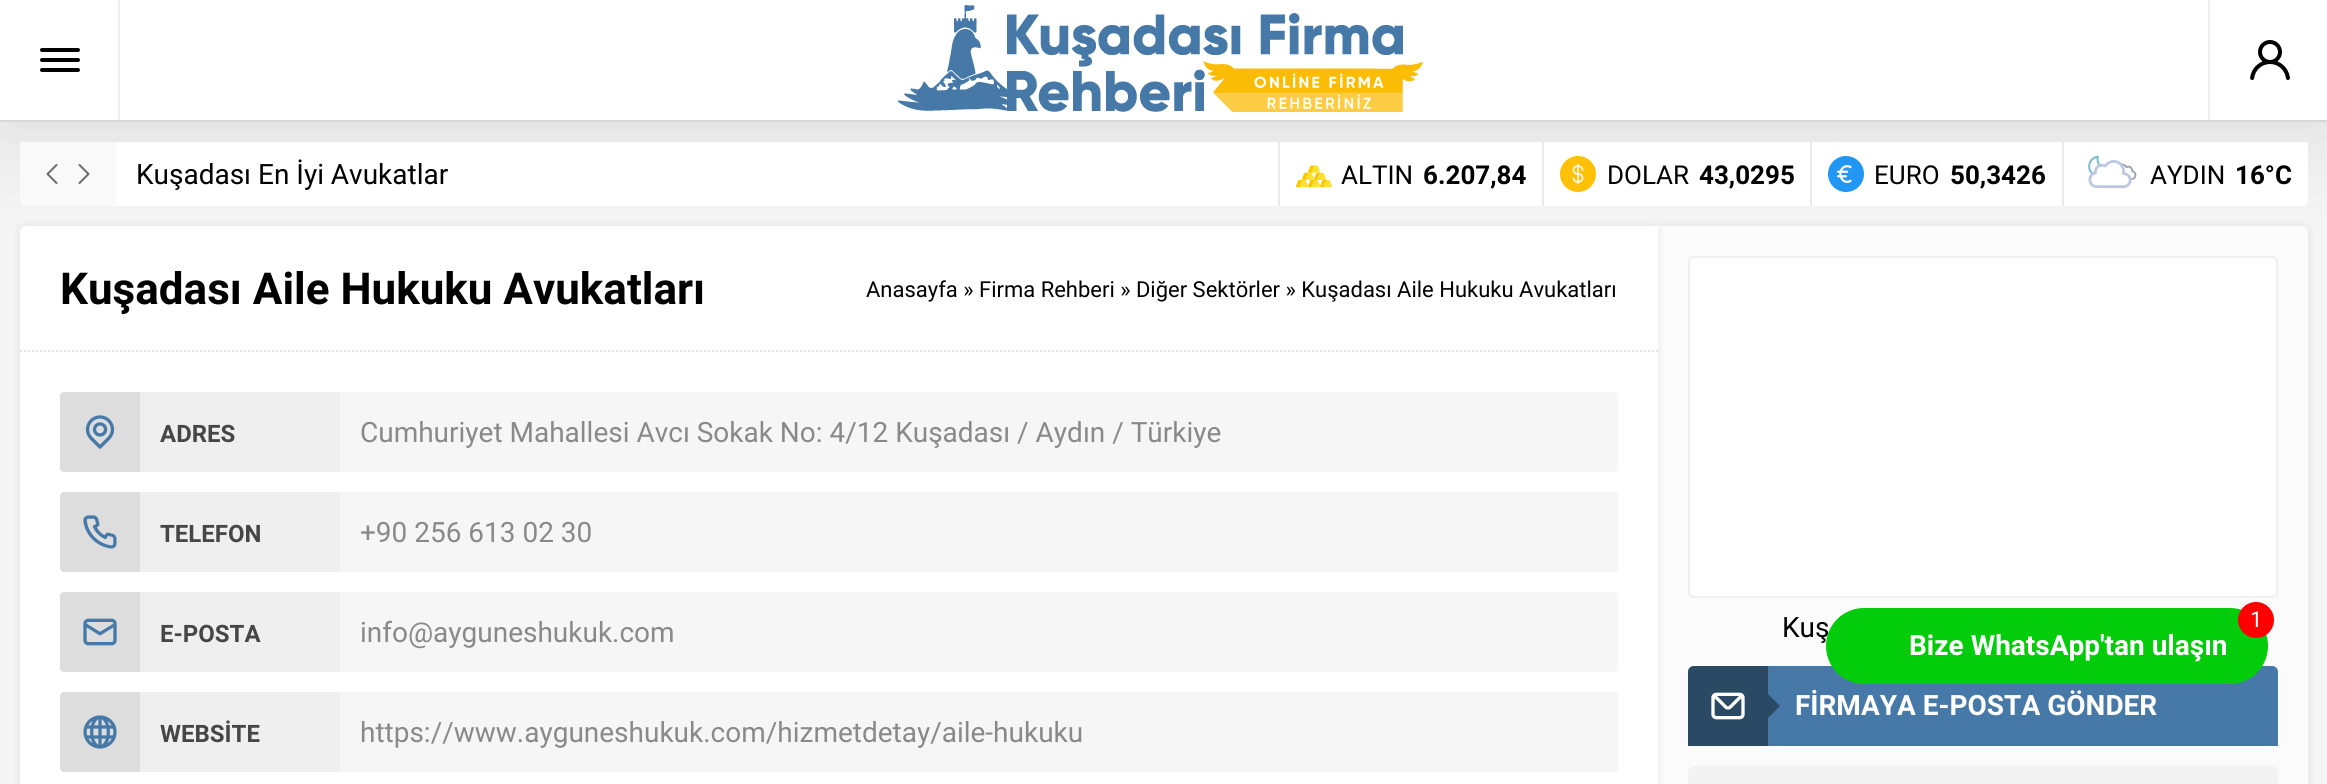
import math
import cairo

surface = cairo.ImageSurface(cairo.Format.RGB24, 2327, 784)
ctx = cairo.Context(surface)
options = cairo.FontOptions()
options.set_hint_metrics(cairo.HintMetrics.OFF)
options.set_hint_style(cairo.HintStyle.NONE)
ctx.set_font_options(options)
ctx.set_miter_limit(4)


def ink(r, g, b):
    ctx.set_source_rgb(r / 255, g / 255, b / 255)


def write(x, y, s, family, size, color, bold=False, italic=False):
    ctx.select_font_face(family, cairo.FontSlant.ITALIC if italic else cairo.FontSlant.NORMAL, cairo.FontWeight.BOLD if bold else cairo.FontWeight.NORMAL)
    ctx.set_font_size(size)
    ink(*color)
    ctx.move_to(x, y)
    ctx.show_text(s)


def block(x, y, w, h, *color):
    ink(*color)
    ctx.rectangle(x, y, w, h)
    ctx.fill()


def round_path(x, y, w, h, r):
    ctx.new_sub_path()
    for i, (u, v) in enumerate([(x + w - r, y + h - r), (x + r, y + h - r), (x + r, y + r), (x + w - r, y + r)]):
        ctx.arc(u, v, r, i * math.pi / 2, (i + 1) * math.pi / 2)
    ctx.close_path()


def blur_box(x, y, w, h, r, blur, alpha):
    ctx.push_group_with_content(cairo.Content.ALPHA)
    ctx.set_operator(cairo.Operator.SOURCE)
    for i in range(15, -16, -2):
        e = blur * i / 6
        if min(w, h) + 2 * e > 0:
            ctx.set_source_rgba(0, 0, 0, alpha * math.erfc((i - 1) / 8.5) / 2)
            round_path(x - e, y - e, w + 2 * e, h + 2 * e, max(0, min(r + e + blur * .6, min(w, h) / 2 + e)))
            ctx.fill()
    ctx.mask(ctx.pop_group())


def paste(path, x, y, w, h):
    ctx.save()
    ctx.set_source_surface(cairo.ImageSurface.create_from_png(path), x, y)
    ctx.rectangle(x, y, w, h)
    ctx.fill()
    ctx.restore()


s1 = dict(family="Roboto", size=28, color=(0, 0, 0))
s2 = dict(family="Roboto", size=26, color=(0, 0, 0))
s3 = dict(family="Roboto", size=26, color=(0, 0, 0), bold=True)
s4 = dict(family="Roboto", size=44, color=(0, 0, 0), bold=True)
s5 = dict(family="Roboto", size=22, color=(0, 0, 0))
s6 = dict(family="Roboto", size=24, color=(70, 70, 70), bold=True)
s7 = dict(family="Roboto", size=28, color=(137, 137, 137))
s8 = dict(family="Roboto", size=28, color=(255, 255, 255), bold=True)
s9 = dict(family="Roboto", size=22, color=(255, 255, 255))

ink(244, 244, 244)
ctx.paint()
ink(0, 0, 0)
blur_box(0, 0, 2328, 122, 0, 50, 0.13)
block(0, 0, 2327, 120, 255, 255, 255)
block(0, 120, 2327, 2, 216, 215, 215)
block(118, 0, 2, 120, 238, 238, 238)
paste("pic1.png", 40, 48, 40, 24)
paste("pic2.png", 898, 5, 525, 107)
block(2208, 0, 2, 120, 238, 238, 238)
paste("pic3.png", 2250, 40, 40, 40)
ink(255, 255, 255)
ctx.new_path()
ctx.move_to(20, 142)
ctx.line_to(2308, 142)
ctx.line_to(2308, 200)
ctx.curve_to(2308, 203.5, 2305.5, 206, 2302, 206)
ctx.line_to(26, 206)
ctx.curve_to(22.5, 206, 20, 203.5, 20, 200)
ctx.close_path()
ctx.fill()
ink(249, 249, 249)
ctx.new_path()
ctx.move_to(20, 142)
ctx.line_to(116, 142)
ctx.line_to(116, 206)
ctx.line_to(26, 206)
ctx.curve_to(22.5, 206, 20, 203.5, 20, 200)
ctx.close_path()
ctx.fill()
paste("pic4.png", 46, 164, 12, 20)
paste("pic5.png", 78, 164, 12, 20)
write(136, 184, "Kuşadası En İyi Avukatlar", **s1)
block(1278, 142, 2, 64, 233, 233, 233)
paste("pic6.png", 1296, 165, 36, 23)
write(1341, 184, "ALTIN", **s2)
write(1423, 184, "6.207,84", **s3)
block(1542, 142, 2, 64, 233, 233, 233)
paste("pic7.png", 1560, 156, 36, 36)
write(1607, 184, "DOLAR", **s2)
write(1699, 184, "43,0295", **s3)
block(1810, 142, 2, 64, 233, 233, 233)
paste("pic8.png", 1828, 156, 36, 36)
write(1874, 184, "EURO", **s2)
write(1950, 184, "50,3426", **s3)
block(2062, 142, 2, 64, 233, 233, 233)
paste("pic9.png", 2088, 155, 49, 34)
write(2150, 184, "AYDIN", **s2)
write(2235, 184, "16°C", **s3)
ink(0, 0, 0)
blur_box(1658, 226, 650, 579, 6, 5, 0.08)
ink(251, 251, 251)
ctx.new_path()
ctx.move_to(1658, 226)
ctx.line_to(2302, 226)
ctx.curve_to(2305.5, 226, 2308, 228.5, 2308, 232)
ctx.line_to(2308, 784)
ctx.curve_to(2308, 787.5, 2305.5, 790, 2302, 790)
ctx.line_to(1658, 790)
ctx.close_path()
ctx.fill()
ink(0, 0, 0)
blur_box(20, 226, 1638, 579, 6, 5, 0.08)
ink(255, 255, 255)
ctx.new_path()
ctx.move_to(26, 226)
ctx.line_to(1658, 226)
ctx.line_to(1658, 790)
ctx.line_to(26, 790)
ctx.curve_to(22.5, 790, 20, 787.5, 20, 784)
ctx.line_to(20, 232)
ctx.curve_to(20, 228.5, 22.5, 226, 26, 226)
ctx.close_path()
ctx.fill()
ctx.new_path()
ctx.move_to(20, 351)
ctx.line_to(1658, 351)
ink(226, 226, 226)
ctx.set_dash([2, 2])
ctx.stroke()
write(60, 304, "Kuşadası Aile Hukuku Avukatları", **s4)
write(866, 297, "Anasayfa » Firma Rehberi » Diğer Sektörler » Kuşadası Aile Hukuku Avukatları", **s5)
ink(246, 246, 246)
round_path(60, 392, 1558, 80, 4)
ctx.fill()
ink(221, 221, 221)
ctx.new_path()
ctx.move_to(64, 392)
ctx.line_to(140, 392)
ctx.line_to(140, 472)
ctx.line_to(64, 472)
ctx.curve_to(62, 472, 60, 470, 60, 468)
ctx.line_to(60, 396)
ctx.curve_to(60, 394, 62, 392, 64, 392)
ctx.close_path()
ctx.fill()
paste("pic10.png", 85, 415, 30, 34)
block(140, 392, 200, 80, 239, 239, 239)
write(160, 442, "ADRES", **s6)
write(360, 442, "Cumhuriyet Mahallesi Avcı Sokak No: 4/12 Kuşadası / Aydın / Türkiye", **s7)
ink(246, 246, 246)
round_path(60, 492, 1558, 80, 4)
ctx.fill()
ink(221, 221, 221)
ctx.new_path()
ctx.move_to(64, 492)
ctx.line_to(140, 492)
ctx.line_to(140, 572)
ctx.line_to(64, 572)
ctx.curve_to(62, 572, 60, 570, 60, 568)
ctx.line_to(60, 496)
ctx.curve_to(60, 494, 62, 492, 64, 492)
ctx.close_path()
ctx.fill()
paste("pic11.png", 83, 515, 34, 34)
block(140, 492, 200, 80, 239, 239, 239)
write(160, 542, "TELEFON", **s6)
write(360, 542, "+90 256 613 02 30", **s7)
ink(246, 246, 246)
round_path(60, 592, 1558, 80, 4)
ctx.fill()
ink(221, 221, 221)
ctx.new_path()
ctx.move_to(64, 592)
ctx.line_to(140, 592)
ctx.line_to(140, 672)
ctx.line_to(64, 672)
ctx.curve_to(62, 672, 60, 670, 60, 668)
ctx.line_to(60, 596)
ctx.curve_to(60, 594, 62, 592, 64, 592)
ctx.close_path()
ctx.fill()
paste("pic12.png", 83, 618, 34, 28)
block(140, 592, 200, 80, 239, 239, 239)
write(160, 642, "E-POSTA", **s6)
write(360, 642, "info@ayguneshukuk.com", **s7)
ink(246, 246, 246)
round_path(60, 692, 1558, 80, 4)
ctx.fill()
ink(221, 221, 221)
ctx.new_path()
ctx.move_to(64, 692)
ctx.line_to(140, 692)
ctx.line_to(140, 772)
ctx.line_to(64, 772)
ctx.curve_to(62, 772, 60, 770, 60, 768)
ctx.line_to(60, 696)
ctx.curve_to(60, 694, 62, 692, 64, 692)
ctx.close_path()
ctx.fill()
paste("pic13.png", 83, 715, 34, 34)
block(140, 692, 200, 80, 239, 239, 239)
write(160, 742, "WEBSİTE", **s6)
write(360, 742, "https://www.ayguneshukuk.com/hizmetdetay/aile-hukuku", **s7)
ink(255, 255, 255)
round_path(1689, 257, 588, 340, 5)
ctx.fill_preserve()
ink(239, 239, 239)
ctx.set_dash([])
ctx.stroke()
write(1782, 637, "Kuş", **s1)
ink(70, 121, 168)
ctx.new_path()
ctx.move_to(1694, 666)
ctx.line_to(2272, 666)
ctx.curve_to(2275.5, 666, 2278, 668.5, 2278, 672)
ctx.line_to(2278, 746)
ctx.line_to(1688, 746)
ctx.line_to(1688, 672)
ctx.curve_to(1688, 668.5, 1690.5, 666, 1694, 666)
ctx.close_path()
ctx.fill()
ctx.set_source_rgba(0, 0, 0, 0.4)
ctx.new_path()
ctx.move_to(1694, 666)
ctx.line_to(1768, 666)
ctx.line_to(1768, 746)
ctx.line_to(1688, 746)
ctx.line_to(1688, 672)
ctx.curve_to(1688, 668.5, 1690.5, 666, 1694, 666)
ctx.close_path()
ctx.fill()
paste("pic14.png", 1711, 692, 34, 28)
ink(42, 73, 101)
ctx.new_path()
ctx.move_to(1768, 718)
ctx.line_to(1768, 694)
ctx.line_to(1780, 706)
ctx.close_path()
ctx.fill()
write(1795, 715, "FİRMAYA E-POSTA GÖNDER", **s8)
ink(243, 243, 243)
round_path(1688, 766, 590, 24, 6)
ctx.fill()
ink(3, 204, 11)
round_path(1826, 608, 442, 76, 38)
ctx.fill()
ink(255, 0, 0)
ctx.arc(2256, 620, 18, 0, 2 * math.pi)
ctx.fill()
write(2250, 627, "1", **s9)
write(1909, 655, "Bize WhatsApp'tan ulaşın", **s8)
surface.write_to_png("screenshot.png")
